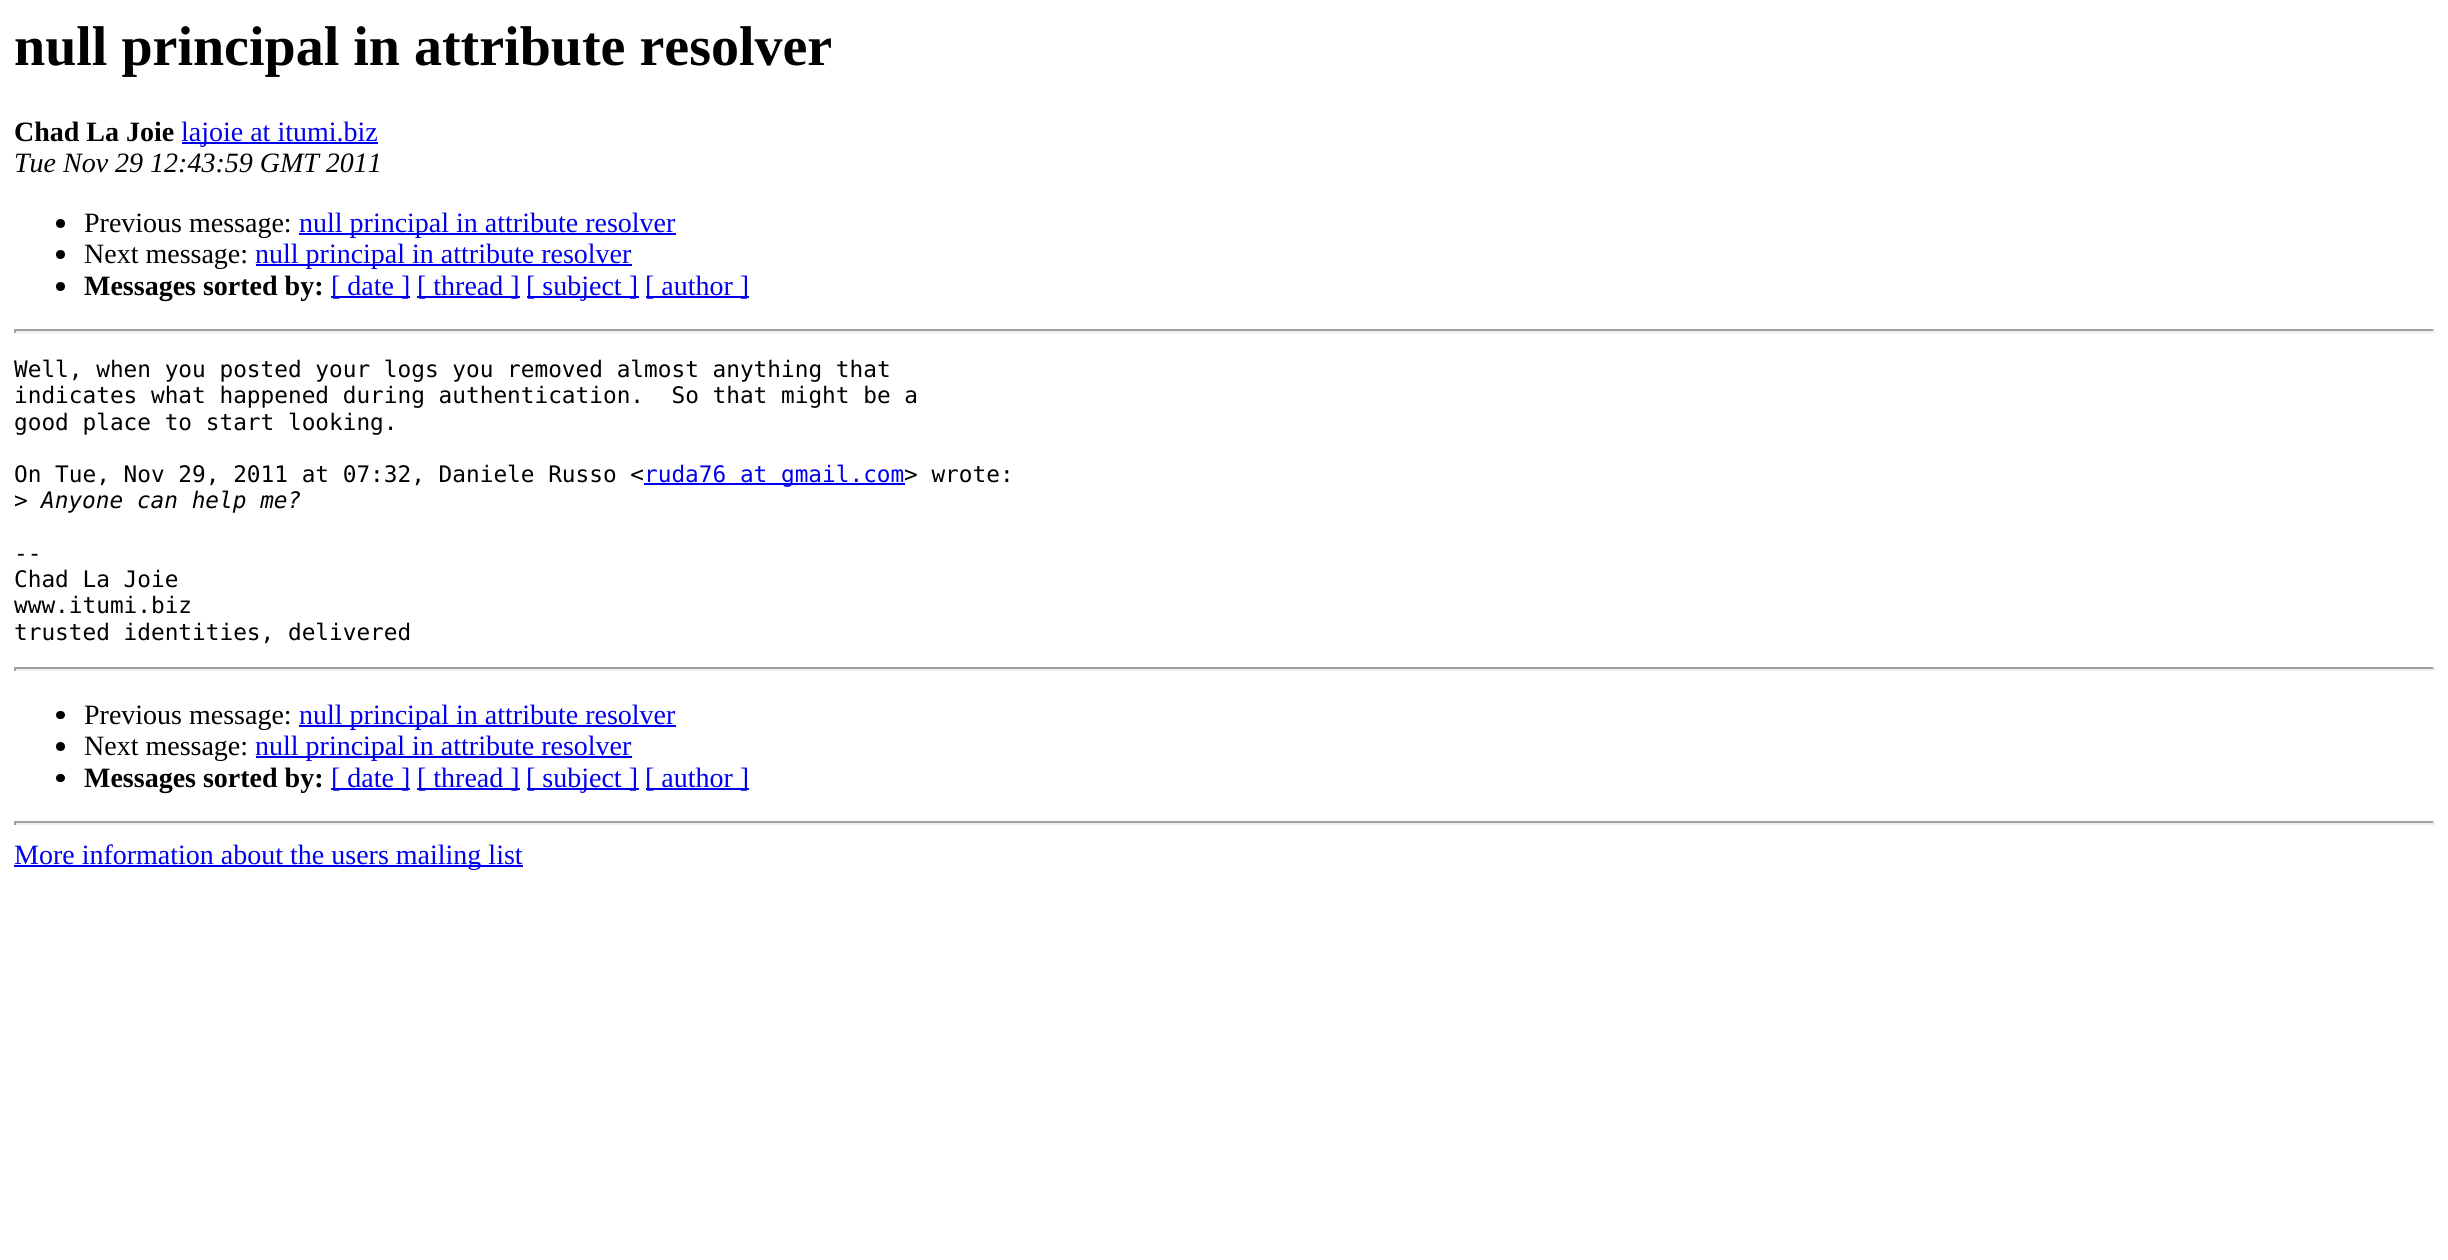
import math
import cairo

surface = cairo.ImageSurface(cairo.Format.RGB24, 2448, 1260)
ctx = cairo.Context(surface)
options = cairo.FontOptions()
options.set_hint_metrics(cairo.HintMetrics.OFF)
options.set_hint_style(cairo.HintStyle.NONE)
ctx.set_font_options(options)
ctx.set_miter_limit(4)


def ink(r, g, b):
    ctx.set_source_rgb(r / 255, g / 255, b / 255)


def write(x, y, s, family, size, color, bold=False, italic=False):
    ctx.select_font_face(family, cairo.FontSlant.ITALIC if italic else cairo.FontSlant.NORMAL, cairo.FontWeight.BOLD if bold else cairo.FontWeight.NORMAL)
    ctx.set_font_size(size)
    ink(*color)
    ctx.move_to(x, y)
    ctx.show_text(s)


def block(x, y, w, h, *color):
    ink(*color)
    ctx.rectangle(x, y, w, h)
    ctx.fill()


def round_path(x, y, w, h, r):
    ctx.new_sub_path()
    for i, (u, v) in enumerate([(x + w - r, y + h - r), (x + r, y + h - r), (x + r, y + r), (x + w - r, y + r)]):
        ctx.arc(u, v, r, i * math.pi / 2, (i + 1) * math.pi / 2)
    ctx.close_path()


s1 = dict(family="Liberation Serif", size=56, color=(0, 0, 0), bold=True)
s2 = dict(family="Liberation Serif", size=28, color=(0, 0, 0), bold=True)
s3 = dict(family="Liberation Serif", size=28, color=(0, 0, 238))
s4 = dict(family="Liberation Serif", size=28, color=(0, 0, 0), italic=True)
s5 = dict(family="Liberation Serif", size=28, color=(0, 0, 0))
s6 = dict(family="DejaVu Sans Mono", size=22.75, color=(0, 0, 0))
s7 = dict(family="DejaVu Sans Mono", size=22.75, color=(0, 0, 238))
s8 = dict(family="DejaVu Sans Mono", size=22.75, color=(0, 0, 0), italic=True)

ink(255, 255, 255)
ctx.paint()
write(14, 65, "null principal in attribute resolver", **s1)
write(14, 141, "Chad La Joie", **s2)
block(182, 142, 196, 2, 0, 0, 238)
write(181, 141, "lajoie at itumi.biz", **s3)
write(14, 172, "Tue Nov 29 12:43:59 GMT 2011", **s4)
ctx.new_path()
ctx.arc(60.5, 223.5, 4.5, 0, 2 * math.pi)
ctx.fill()
write(84, 232, "Previous message:", **s5)
block(299, 233, 377, 2, 0, 0, 238)
write(299, 232, "null principal in attribute resolver", **s3)
ink(0, 0, 0)
ctx.new_path()
ctx.arc(60.5, 254.5, 4.5, 0, 2 * math.pi)
ctx.fill()
write(84, 263, "Next message:", **s5)
block(256, 264, 376, 2, 0, 0, 238)
write(255, 263, "null principal in attribute resolver", **s3)
ink(0, 0, 0)
ctx.new_path()
ctx.arc(60.5, 286.5, 4.5, 0, 2 * math.pi)
ctx.fill()
write(84, 295, "Messages sorted by:", **s2)
block(331, 296, 79, 2, 0, 0, 238)
write(331, 295, "[ date ]", **s3)
block(417, 296, 103, 2, 0, 0, 238)
write(417, 295, "[ thread ]", **s3)
block(527, 296, 112, 2, 0, 0, 238)
write(526, 295, "[ subject ]", **s3)
block(646, 296, 103, 2, 0, 0, 238)
write(645, 295, "[ author ]", **s3)
block(14, 329, 2420, 2, 159, 159, 159)
block(2433, 329, 2, 4, 238, 238, 238)
block(14, 331, 2420, 2, 238, 238, 238)
block(14, 329, 2, 4, 159, 159, 159)
write(14, 377, "Well, when you posted your logs you removed almost anything that", **s6)
write(14, 403, "indicates what happened during authentication.  So that might be a", **s6)
write(14, 430, "good place to start looking.", **s6)
write(14, 482, "On Tue, Nov 29, 2011 at 07:32, Daniele Russo <", **s6)
block(644, 483, 261, 2, 0, 0, 238)
write(644, 482, "ruda76 at gmail.com", **s7)
write(904, 482, "> wrote:", **s6)
write(14, 508, ">", **s6)
write(41, 508, "Anyone can help me?", **s8)
write(14, 561, "--", **s6)
write(14, 587, "Chad La Joie", **s6)
write(14, 613, "www.itumi.biz", **s6)
write(14, 640, "trusted identities, delivered", **s6)
block(14, 667, 2420, 2, 159, 159, 159)
block(2433, 667, 2, 4, 238, 238, 238)
block(14, 669, 2420, 2, 238, 238, 238)
block(14, 667, 2, 4, 159, 159, 159)
ink(0, 0, 0)
round_path(56, 711, 9, 8, 4)
ctx.fill()
write(84, 724, "Previous message:", **s5)
block(299, 725, 377, 2, 0, 0, 238)
write(299, 724, "null principal in attribute resolver", **s3)
ink(0, 0, 0)
ctx.new_path()
ctx.arc(60.5, 746.5, 4.5, 0, 2 * math.pi)
ctx.fill()
write(84, 755, "Next message:", **s5)
block(256, 756, 376, 2, 0, 0, 238)
write(255, 755, "null principal in attribute resolver", **s3)
ink(0, 0, 0)
round_path(56, 774, 9, 8, 4)
ctx.fill()
write(84, 787, "Messages sorted by:", **s2)
block(331, 788, 79, 2, 0, 0, 238)
write(331, 787, "[ date ]", **s3)
block(417, 788, 103, 2, 0, 0, 238)
write(417, 787, "[ thread ]", **s3)
block(527, 788, 112, 2, 0, 0, 238)
write(526, 787, "[ subject ]", **s3)
block(646, 788, 103, 2, 0, 0, 238)
write(645, 787, "[ author ]", **s3)
block(14, 821, 2420, 2, 159, 159, 159)
block(2433, 821, 2, 4, 238, 238, 238)
block(14, 823, 2420, 2, 238, 238, 238)
block(14, 821, 2, 4, 159, 159, 159)
block(14, 865, 509, 2, 0, 0, 238)
write(14, 864, "More information about the users mailing list", **s3)
surface.write_to_png("screenshot.png")
